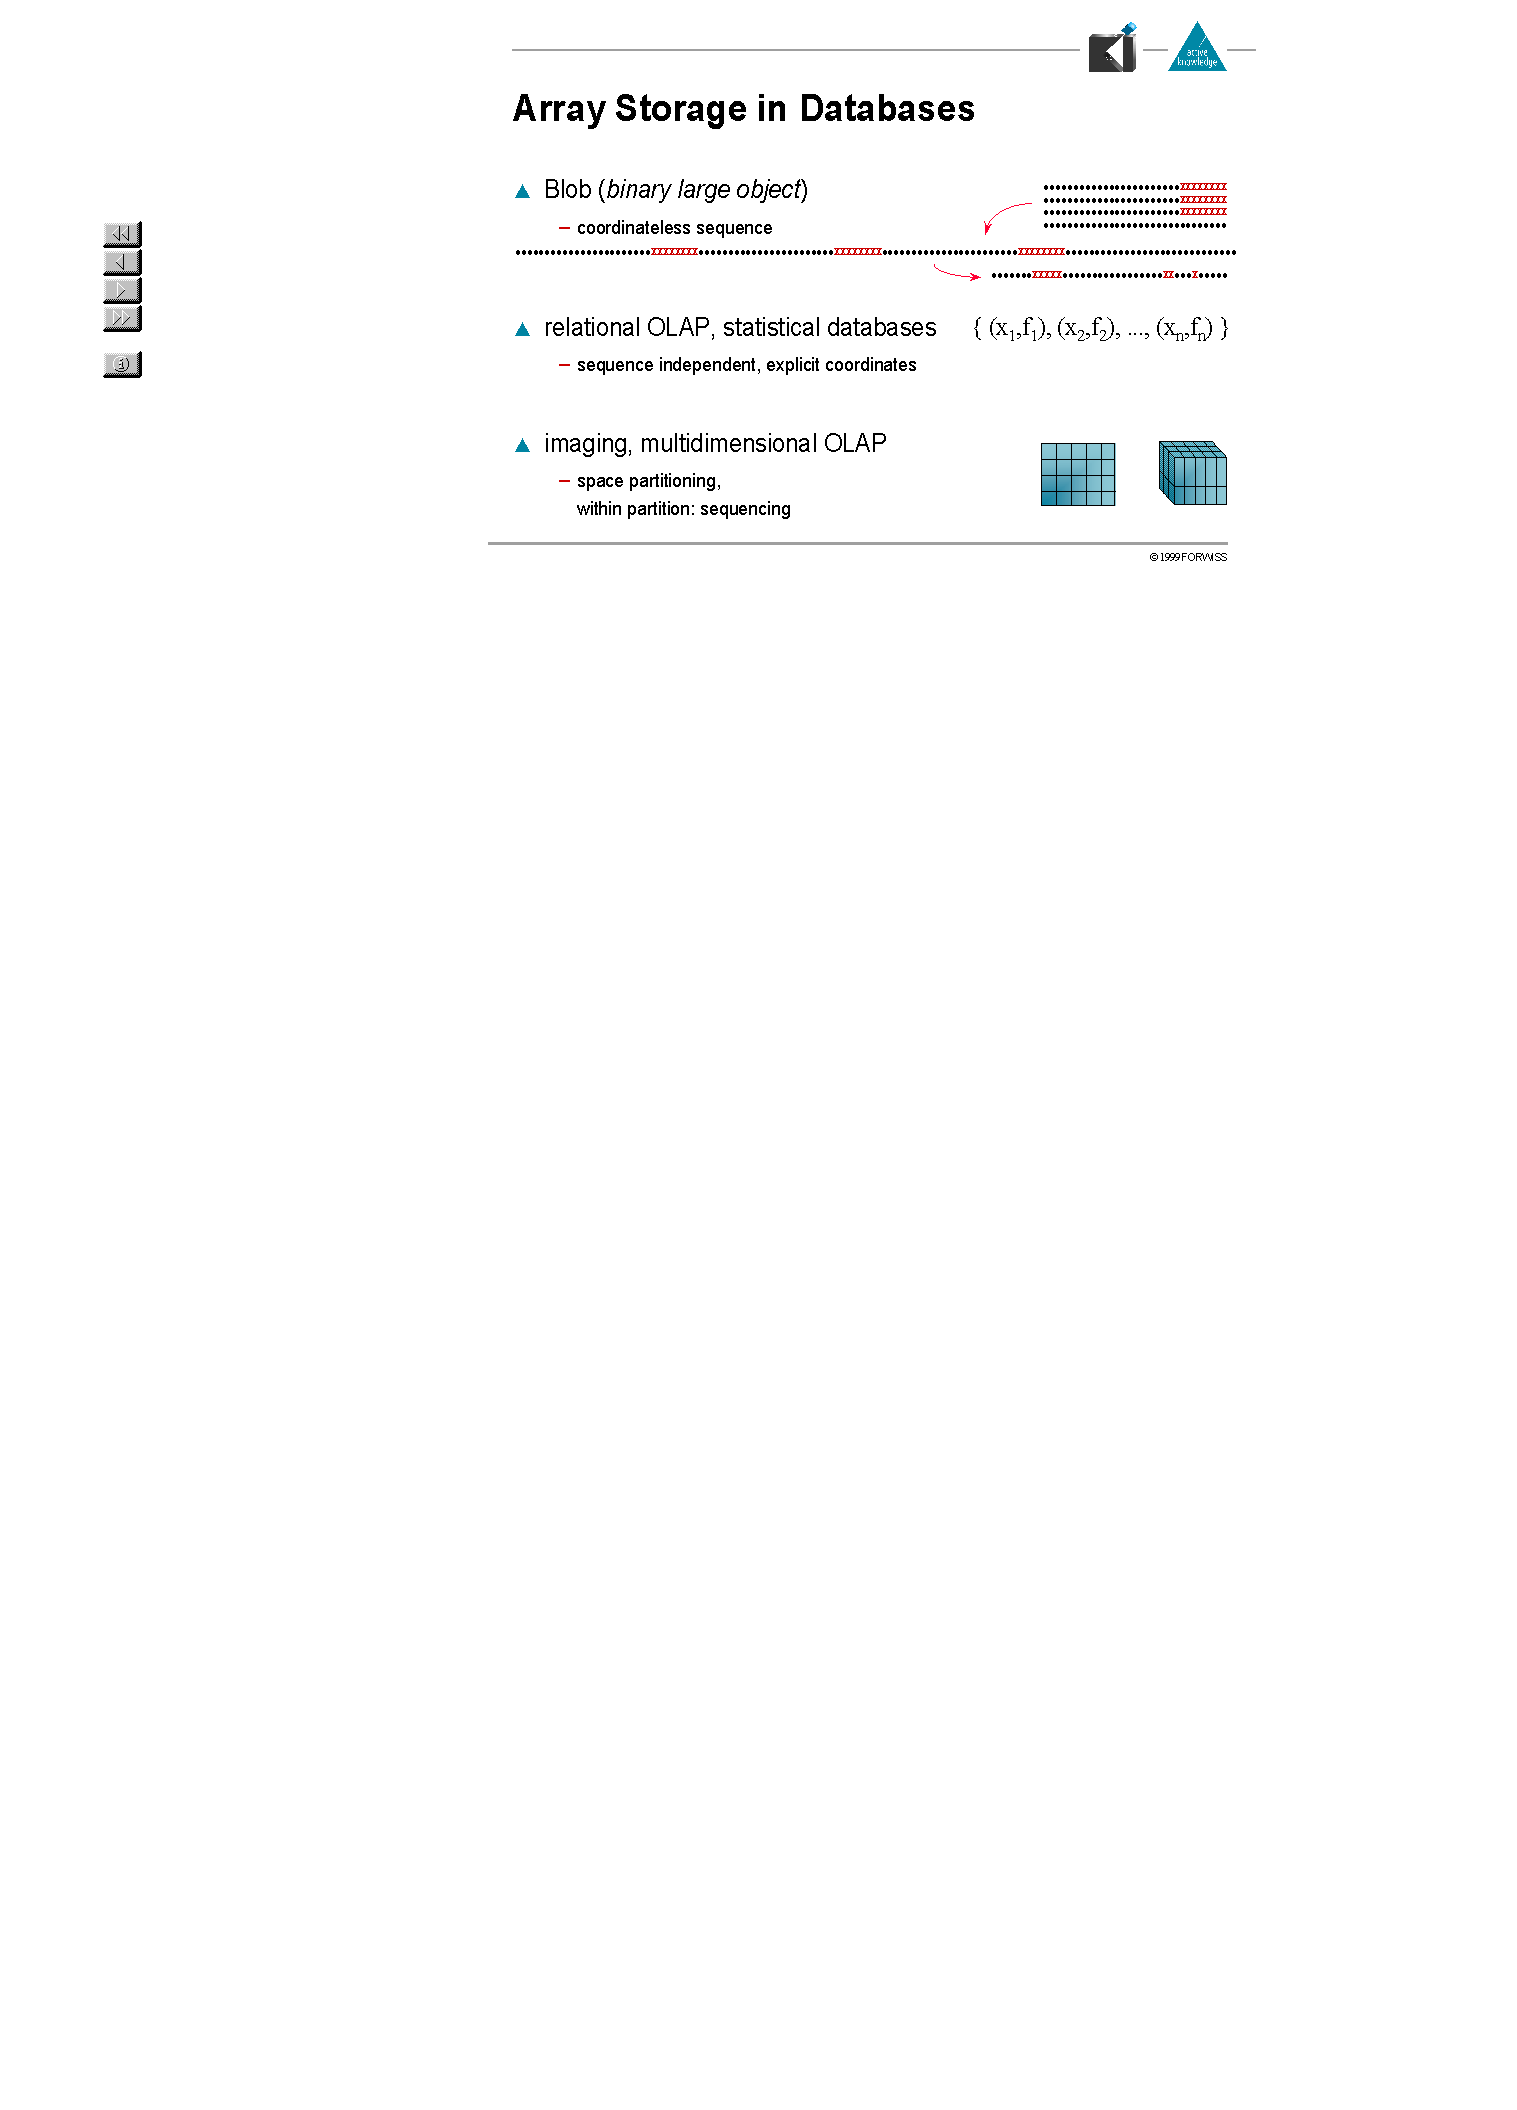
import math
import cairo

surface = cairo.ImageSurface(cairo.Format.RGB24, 1517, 2110)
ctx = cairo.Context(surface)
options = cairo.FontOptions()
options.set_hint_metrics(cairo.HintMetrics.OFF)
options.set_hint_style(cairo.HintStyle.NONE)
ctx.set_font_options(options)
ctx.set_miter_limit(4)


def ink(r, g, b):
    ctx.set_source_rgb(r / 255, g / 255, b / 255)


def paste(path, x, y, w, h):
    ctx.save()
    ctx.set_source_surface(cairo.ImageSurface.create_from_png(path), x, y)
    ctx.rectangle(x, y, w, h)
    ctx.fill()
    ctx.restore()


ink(255, 255, 255)
ctx.paint()
paste("pic1.png", 103, 221, 39, 27)
paste("pic2.png", 103, 249, 39, 27)
paste("pic3.png", 103, 277, 39, 27)
paste("pic4.png", 103, 305, 39, 27)
paste("pic5.png", 103, 351, 39, 27)
paste("pic6.png", 488, 21, 768, 540)
surface.write_to_png("screenshot.png")
